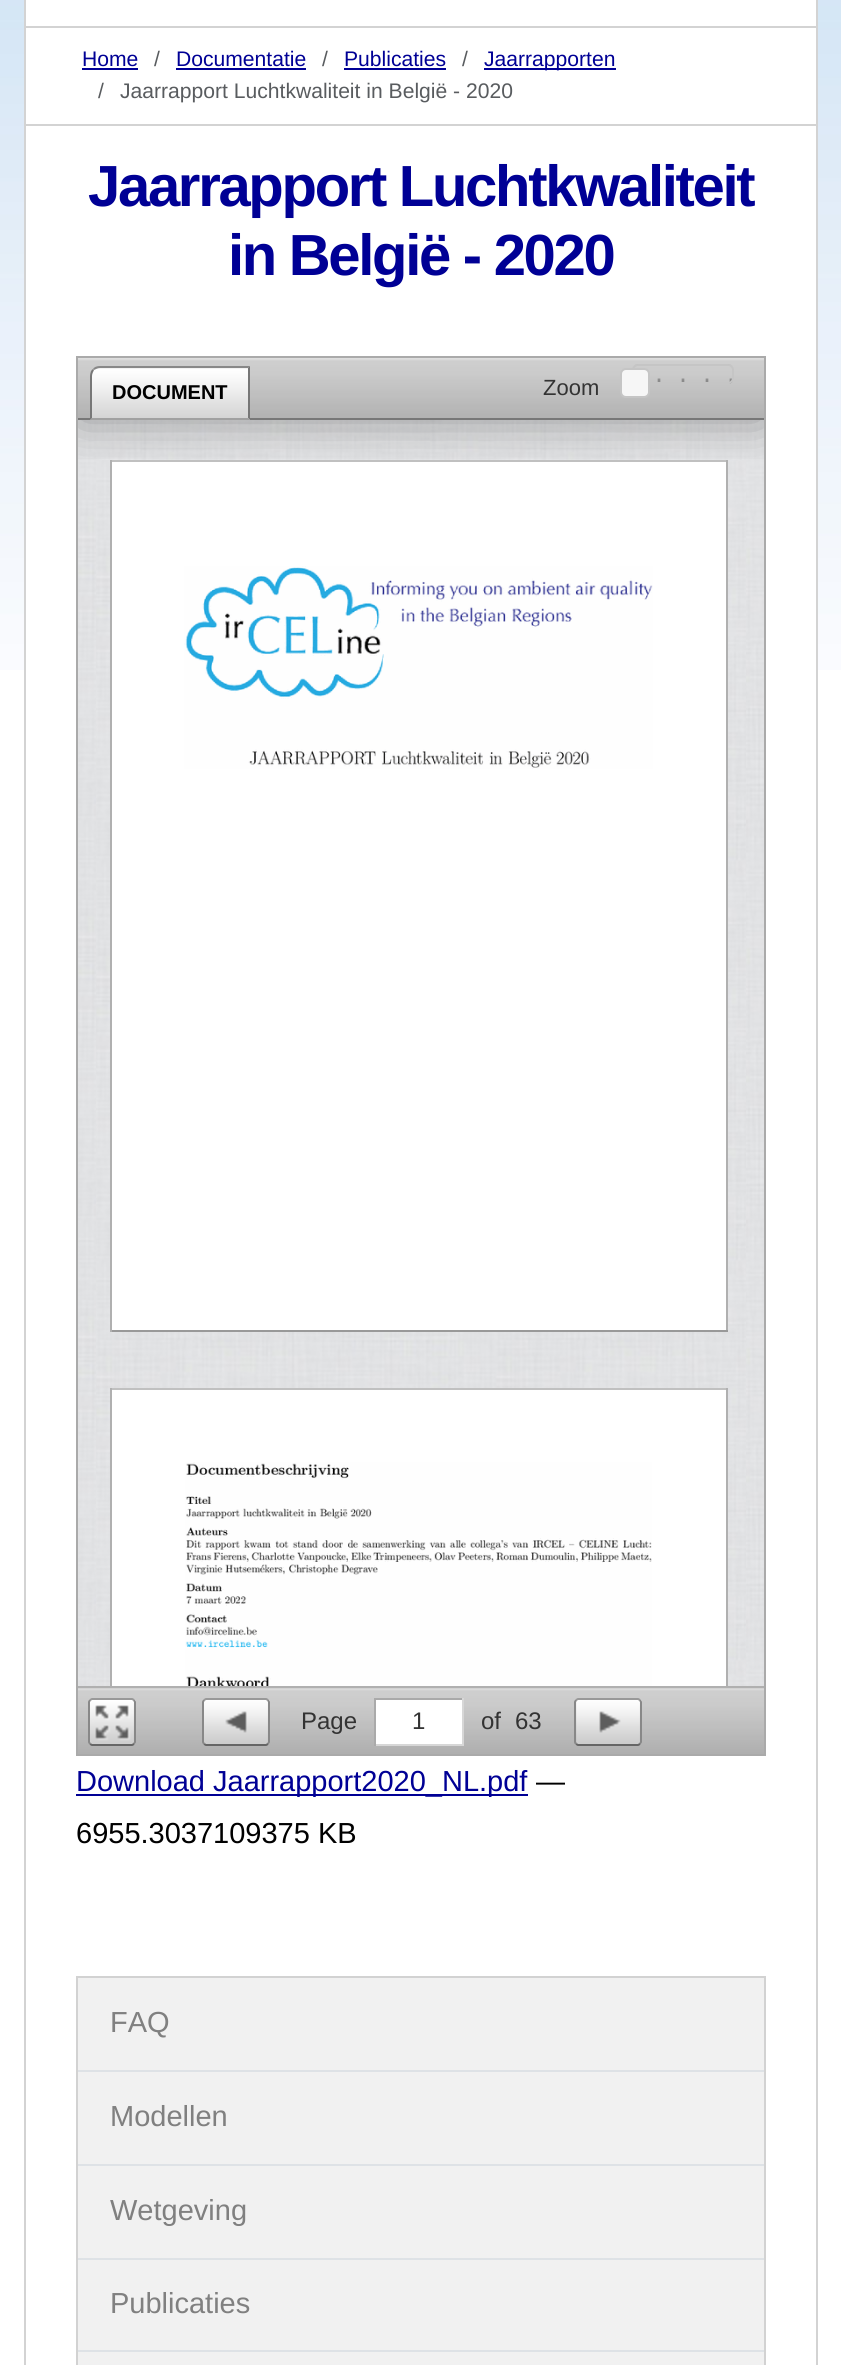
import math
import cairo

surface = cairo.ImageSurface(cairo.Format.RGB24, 841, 2365)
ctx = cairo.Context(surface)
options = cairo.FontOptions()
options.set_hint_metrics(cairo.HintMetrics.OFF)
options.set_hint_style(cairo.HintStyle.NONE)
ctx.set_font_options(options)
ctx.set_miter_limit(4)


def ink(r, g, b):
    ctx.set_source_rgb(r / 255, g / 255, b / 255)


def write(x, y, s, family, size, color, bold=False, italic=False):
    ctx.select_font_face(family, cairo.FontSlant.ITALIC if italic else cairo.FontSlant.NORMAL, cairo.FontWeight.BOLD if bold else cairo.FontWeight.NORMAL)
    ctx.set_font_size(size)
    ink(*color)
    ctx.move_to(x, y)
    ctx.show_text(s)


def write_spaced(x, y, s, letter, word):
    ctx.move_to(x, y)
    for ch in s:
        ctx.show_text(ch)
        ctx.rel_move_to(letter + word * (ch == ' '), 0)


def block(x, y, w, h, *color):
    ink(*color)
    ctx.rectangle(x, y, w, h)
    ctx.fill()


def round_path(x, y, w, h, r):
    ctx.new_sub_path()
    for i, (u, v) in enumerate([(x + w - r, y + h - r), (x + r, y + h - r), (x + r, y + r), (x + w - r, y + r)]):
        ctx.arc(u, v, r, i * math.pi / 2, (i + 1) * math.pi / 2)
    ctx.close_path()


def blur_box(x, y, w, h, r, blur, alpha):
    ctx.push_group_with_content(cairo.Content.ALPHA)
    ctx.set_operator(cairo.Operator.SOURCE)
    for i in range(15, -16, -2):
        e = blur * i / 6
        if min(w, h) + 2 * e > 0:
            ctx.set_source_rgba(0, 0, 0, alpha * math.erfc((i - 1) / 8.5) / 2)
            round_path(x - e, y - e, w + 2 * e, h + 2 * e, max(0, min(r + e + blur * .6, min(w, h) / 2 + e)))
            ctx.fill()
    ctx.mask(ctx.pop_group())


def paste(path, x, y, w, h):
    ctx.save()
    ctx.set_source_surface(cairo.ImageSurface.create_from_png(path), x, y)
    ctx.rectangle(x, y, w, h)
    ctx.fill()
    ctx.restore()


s1 = dict(family="Arimo", size=21.1, color=(0, 0, 149))
s2 = dict(family="Arimo", size=21.1, color=(89, 92, 95))
s3 = dict(family="Liberation Sans", size=20, color=(0, 0, 0), bold=True)
s4 = dict(family="Liberation Sans", size=22, color=(51, 51, 51))
s5 = dict(family="Liberation Sans", size=24, color=(51, 51, 51))
s6 = dict(family="Arimo", size=29, color=(0, 0, 149))
s7 = dict(family="Arimo", size=29, color=(0, 0, 0))
s8 = dict(family="Arimo", size=29, color=(128, 128, 128))

ink(255, 255, 255)
ctx.paint()
paste("pic1.png", 0, 0, 841, 670)
block(26, 0, 790, 26, 255, 255, 255)
block(26, 28, 790, 96, 255, 255, 255)
block(24, 26, 794, 2, 211, 211, 211)
block(816, 0, 2, 124, 211, 211, 211)
block(24, 0, 2, 124, 211, 211, 211)
write(82, 66, "Home", **s1)
block(82, 68, 56, 2, 0, 0, 149)
write(154, 66, "/", **s2)
write(176, 66, "Documentatie", **s1)
block(176, 68, 130, 2, 0, 0, 149)
write(322, 66, "/", **s2)
write(344, 66, "Publicaties", **s1)
block(344, 68, 102, 2, 0, 0, 149)
write(462, 66, "/", **s2)
block(484, 68, 132, 2, 0, 0, 149)
write(484, 66, "Jaarrapporten", **s1)
write(98, 98, "/", **s2)
write(120, 98, "Jaarrapport Luchtkwaliteit in België - 2020", **s2)
block(26, 126, 790, 544, 255, 255, 255)
block(24, 124, 794, 2, 211, 211, 211)
block(816, 124, 2, 2241, 211, 211, 211)
block(24, 124, 2, 2241, 211, 211, 211)
ctx.select_font_face("Arimo", cairo.FontSlant.NORMAL, cairo.FontWeight.BOLD)
ctx.set_font_size(58)
ink(0, 0, 149)
write_spaced(88, 206, "Jaarrapport Luchtkwaliteit", -2.3, 0)
write_spaced(228, 275, "in België - 2020", -2.3, 0)
ctx.rectangle(77, 357, 688, 1398)
ink(170, 170, 170)
ctx.stroke()
paste("pic5.png", 78, 420, 686, 1266)
paste("pic6.png", 96, 460, 650, 1226)
block(112, 462, 614, 868, 255, 255, 255)
block(110, 460, 618, 2, 192, 192, 192)
block(726, 460, 2, 872, 176, 176, 176)
block(110, 1330, 618, 2, 153, 153, 153)
block(110, 460, 2, 872, 176, 176, 176)
ctx.save()
ctx.rectangle(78, 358, 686, 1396)
ctx.clip()
ctx.rectangle(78, 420, 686, 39)
ctx.clip()
ink(0, 0, 0)
blur_box(78, 358, 686, 62, 0, 25, 0.35)
ctx.restore()
block(78, 418, 686, 2, 119, 119, 119)
paste("pic2.png", 78, 358, 686, 60)
paste("pic3.png", 90, 367, 160, 53)
ink(136, 136, 136)
ctx.new_path()
ctx.move_to(100, 366)
ctx.curve_to(97, 366, 94, 367, 93, 369)
ctx.line_to(94, 370)
ctx.curve_to(96, 369, 98, 368, 100, 368)
ctx.line_to(248, 368)
ctx.line_to(250, 366)
ctx.close_path()
ctx.fill()
ink(119, 119, 119)
ctx.new_path()
ctx.move_to(250, 366)
ctx.line_to(248, 368)
ctx.line_to(248, 418)
ctx.line_to(250, 420)
ctx.close_path()
ctx.fill()
ink(160, 160, 160)
ctx.new_path()
ctx.move_to(250, 420)
ctx.line_to(248, 418)
ctx.line_to(92, 418)
ctx.line_to(90, 420)
ctx.close_path()
ctx.fill()
ink(119, 119, 119)
ctx.new_path()
ctx.move_to(90, 420)
ctx.line_to(92, 418)
ctx.line_to(92, 376)
ctx.curve_to(92, 374, 93, 372, 94, 370)
ctx.line_to(93, 369)
ctx.curve_to(91, 370, 90, 373, 90, 376)
ctx.close_path()
ctx.fill()
write(112, 399, "DOCUMENT", **s3)
write(543, 395, "Zoom", **s4)
paste("pic4.png", 634, 364, 99, 20)
round_path(633, 365, 100, 18, 5)
ink(197, 197, 197)
ctx.stroke()
ink(246, 246, 246)
round_path(621, 369, 28, 28, 5)
ctx.fill_preserve()
ink(197, 197, 197)
ctx.stroke()
paste("pic7.png", 184, 566, 469, 203)
block(112, 1390, 614, 296, 255, 255, 255)
block(110, 1388, 618, 2, 192, 192, 192)
block(726, 1388, 2, 300, 176, 176, 176)
block(110, 1388, 2, 300, 176, 176, 176)
paste("pic8.png", 185, 1462, 467, 224)
paste("pic9.png", 78, 1688, 686, 66)
block(78, 1686, 686, 2, 176, 176, 176)
paste("pic10.png", 90, 1700, 46, 44)
ctx.new_path()
ctx.move_to(90, 1700)
ctx.line_to(92, 1699)
ctx.line_to(132, 1699)
ctx.line_to(134, 1700)
ink(153, 153, 153)
ctx.stroke()
ctx.new_path()
ctx.move_to(134, 1700)
ctx.line_to(135, 1702)
ctx.line_to(135, 1742)
ctx.line_to(134, 1744)
ink(136, 136, 136)
ctx.stroke()
ctx.new_path()
ctx.move_to(134, 1744)
ctx.line_to(132, 1745)
ctx.line_to(92, 1745)
ctx.line_to(90, 1744)
ink(102, 102, 102)
ctx.stroke()
ctx.new_path()
ctx.move_to(90, 1744)
ctx.line_to(89, 1742)
ctx.line_to(89, 1702)
ctx.line_to(90, 1700)
ink(136, 136, 136)
ctx.stroke()
paste("pic11.png", 204, 1700, 66, 44)
ctx.new_path()
ctx.move_to(204, 1700)
ctx.line_to(206, 1699)
ctx.line_to(266, 1699)
ctx.line_to(268, 1700)
ink(153, 153, 153)
ctx.stroke()
ctx.new_path()
ctx.move_to(268, 1700)
ctx.line_to(269, 1702)
ctx.line_to(269, 1742)
ctx.line_to(268, 1744)
ink(136, 136, 136)
ctx.stroke()
ctx.new_path()
ctx.move_to(268, 1744)
ctx.line_to(266, 1745)
ctx.line_to(206, 1745)
ctx.line_to(204, 1744)
ink(102, 102, 102)
ctx.stroke()
ctx.new_path()
ctx.move_to(204, 1744)
ctx.line_to(203, 1742)
ctx.line_to(203, 1702)
ctx.line_to(204, 1700)
ink(136, 136, 136)
ctx.stroke()
write(301, 1729, "Page", **s5)
block(376, 1700, 86, 44, 255, 255, 255)
block(374, 1698, 90, 2, 170, 170, 170)
block(462, 1698, 2, 48, 215, 215, 215)
block(374, 1744, 90, 2, 215, 215, 215)
block(374, 1698, 2, 48, 170, 170, 170)
write(412, 1729, "1", **s5)
write(481, 1729, "of", **s5)
write(515, 1729, "63", **s5)
paste("pic12.png", 574, 1700, 68, 44)
ctx.new_path()
ctx.move_to(576, 1700)
ctx.line_to(578, 1699)
ctx.line_to(638, 1699)
ctx.line_to(640, 1700)
ink(153, 153, 153)
ctx.stroke()
ctx.new_path()
ctx.move_to(640, 1700)
ctx.line_to(641, 1702)
ctx.line_to(641, 1742)
ctx.line_to(640, 1744)
ink(136, 136, 136)
ctx.stroke()
ctx.new_path()
ctx.move_to(640, 1744)
ctx.line_to(638, 1745)
ctx.line_to(578, 1745)
ctx.line_to(576, 1744)
ink(102, 102, 102)
ctx.stroke()
ctx.new_path()
ctx.move_to(576, 1744)
ctx.line_to(575, 1742)
ctx.line_to(575, 1702)
ctx.line_to(576, 1700)
ink(136, 136, 136)
ctx.stroke()
block(76, 1794, 452, 2, 0, 0, 149)
write(76, 1791, "Download Jaarrapport2020_NL.pdf", **s6)
write(536, 1791, "—", **s7)
write(76, 1843, "6955.3037109375 KB", **s7)
ctx.rectangle(77, 1977, 688, 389)
ink(210, 210, 210)
ctx.stroke()
block(78, 1978, 686, 92, 241, 241, 241)
write(110, 2032, "FAQ", **s8)
block(78, 2072, 686, 92, 241, 241, 241)
block(78, 2070, 686, 2, 222, 226, 230)
write(110, 2126, "Modellen", **s8)
block(78, 2166, 686, 92, 241, 241, 241)
block(78, 2164, 686, 2, 222, 226, 230)
write(110, 2220, "Wetgeving", **s8)
block(78, 2260, 686, 105, 241, 241, 241)
block(78, 2258, 686, 2, 222, 226, 230)
write(110, 2313, "Publicaties", **s8)
block(78, 2350, 686, 2, 222, 226, 230)
surface.write_to_png("screenshot.png")
